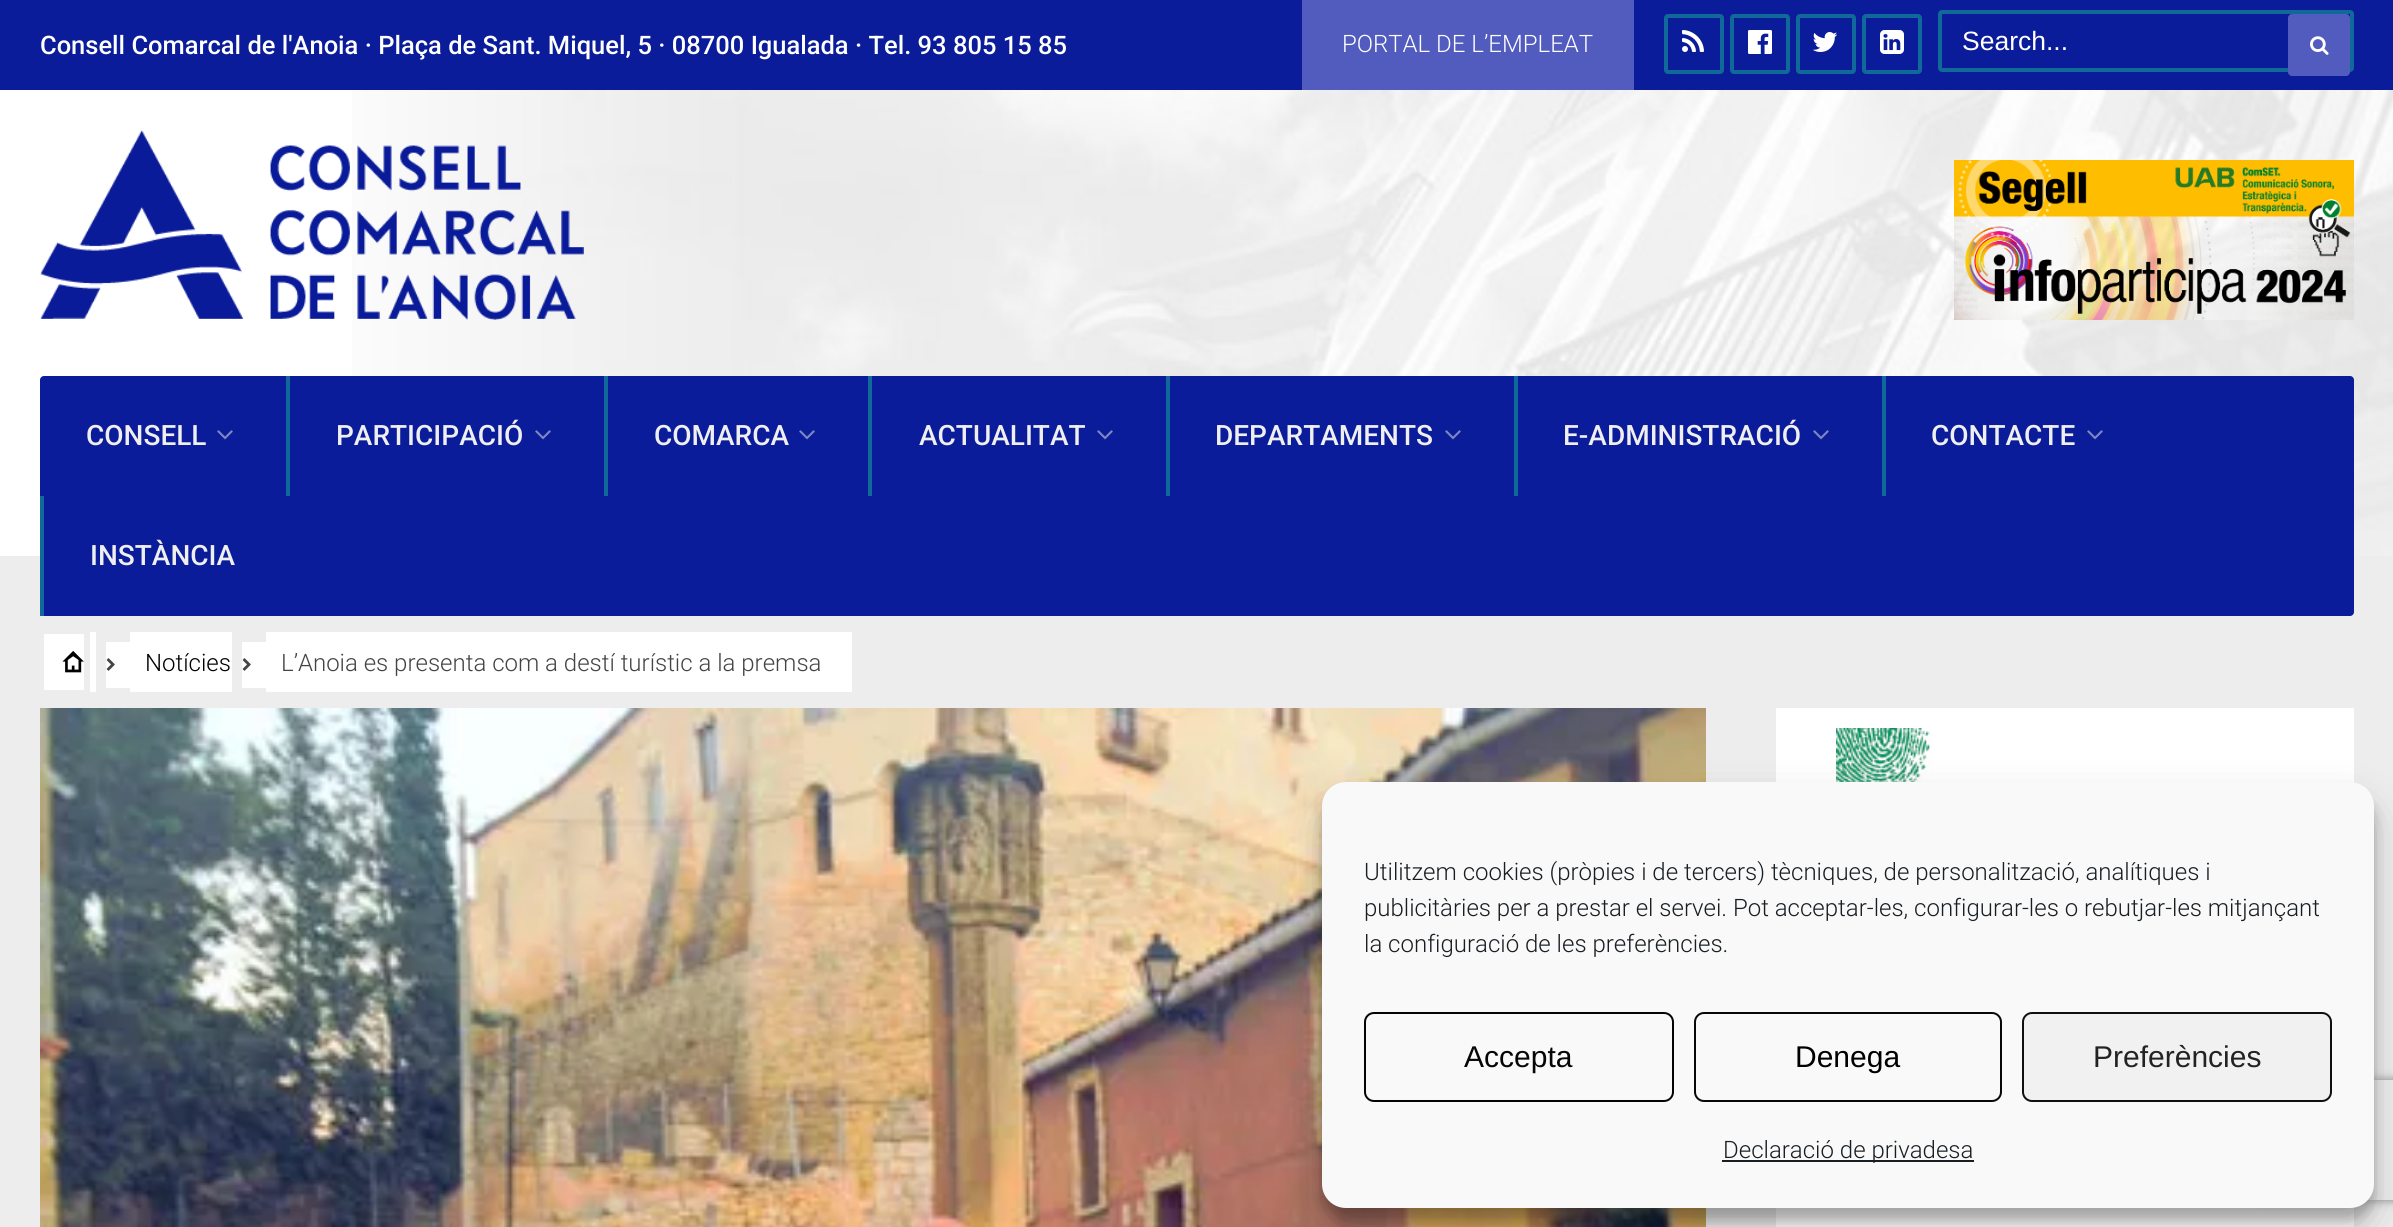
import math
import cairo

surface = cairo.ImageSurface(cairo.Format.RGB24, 2393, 1227)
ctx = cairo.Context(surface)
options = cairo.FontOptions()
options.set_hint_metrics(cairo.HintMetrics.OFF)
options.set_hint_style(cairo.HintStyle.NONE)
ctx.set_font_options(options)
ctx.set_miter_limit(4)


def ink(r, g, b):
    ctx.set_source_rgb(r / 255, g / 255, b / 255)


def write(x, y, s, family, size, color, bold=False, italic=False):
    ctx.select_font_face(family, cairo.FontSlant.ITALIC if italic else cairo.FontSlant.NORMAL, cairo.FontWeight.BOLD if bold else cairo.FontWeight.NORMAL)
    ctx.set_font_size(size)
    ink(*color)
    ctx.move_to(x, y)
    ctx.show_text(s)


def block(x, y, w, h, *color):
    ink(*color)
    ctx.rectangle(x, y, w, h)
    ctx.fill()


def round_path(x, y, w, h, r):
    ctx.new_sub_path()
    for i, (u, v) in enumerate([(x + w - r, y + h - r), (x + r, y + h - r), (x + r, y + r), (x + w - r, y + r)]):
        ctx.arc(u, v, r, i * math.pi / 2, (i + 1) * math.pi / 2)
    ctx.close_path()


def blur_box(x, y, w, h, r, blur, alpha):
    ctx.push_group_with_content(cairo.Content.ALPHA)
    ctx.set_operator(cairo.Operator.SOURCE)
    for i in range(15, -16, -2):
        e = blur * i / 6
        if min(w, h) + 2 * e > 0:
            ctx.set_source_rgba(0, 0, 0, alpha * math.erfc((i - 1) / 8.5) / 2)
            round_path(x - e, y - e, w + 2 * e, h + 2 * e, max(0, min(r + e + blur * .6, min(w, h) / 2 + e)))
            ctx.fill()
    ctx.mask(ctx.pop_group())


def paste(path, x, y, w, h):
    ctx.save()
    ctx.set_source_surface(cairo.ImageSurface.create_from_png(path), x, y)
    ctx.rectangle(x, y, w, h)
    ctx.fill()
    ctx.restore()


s1 = dict(family="Roboto Medium", size=25.5, color=(255, 255, 255))
s2 = dict(family="Roboto Light", size=24, color=(255, 255, 255))
s3 = dict(family="Liberation Sans", size=26.5, color=(255, 255, 255))
s4 = dict(family="Roboto Medium", size=28, color=(239, 239, 239))
s5 = dict(family="Roboto Light", size=24, color=(0, 0, 0))
s6 = dict(family="Roboto Light", size=24, color=(68, 68, 68))
s7 = dict(family="Roboto Light", size=24, color=(25, 30, 35))
s8 = dict(family="Liberation Sans", size=30, color=(6, 6, 6))
s9 = dict(family="Liberation Sans", size=30, color=(0, 0, 0))
s10 = dict(family="Liberation Sans", size=30, color=(35, 35, 37))

ink(237, 237, 237)
ctx.paint()
block(0, 0, 2393, 90, 10, 28, 153)
write(40, 54, "Consell Comarcal de l'Anoia · Plaça de Sant. Miquel, 5 · 08700 Igualada · Tel. 93 805 15 85", **s1)
block(1302, 0, 332, 90, 82, 91, 190)
write(1342, 52, "PORTAL DE L’EMPLEAT", **s2)
round_path(1666, 16, 56, 56, 2)
ink(16, 105, 153)
ctx.set_line_width(4)
ctx.stroke()
paste("pic1.png", 1682, 30, 22, 22)
round_path(1732, 16, 56, 56, 2)
ctx.stroke()
paste("pic2.png", 1748, 30, 24, 24)
round_path(1798, 16, 56, 56, 2)
ctx.stroke()
paste("pic3.png", 1812, 32, 26, 20)
round_path(1864, 16, 56, 56, 2)
ctx.stroke()
paste("pic4.png", 1880, 30, 24, 24)
round_path(1940, 12, 412, 58, 2)
ctx.stroke()
write(1962, 50, "Search...", **s3)
ink(82, 91, 190)
round_path(2288, 14, 62, 62, 4)
ctx.fill()
paste("pic5.png", 2310, 36, 19, 19)
block(0, 90, 352, 466, 255, 255, 255)
paste("pic6.png", 352, 90, 2041, 466)
paste("pic7.png", 40, 130, 544, 190)
paste("pic8.png", 1954, 160, 400, 160)
ink(10, 28, 153)
round_path(40, 376, 2314, 240, 4)
ctx.fill()
write(86, 445, "CONSELL", **s4)
paste("pic9.png", 217, 430, 16, 10)
block(286, 376, 4, 120, 16, 105, 153)
write(336, 445, "PARTICIPACIÓ", **s4)
paste("pic9.png", 535, 430, 16, 10)
block(604, 376, 4, 120, 16, 105, 153)
write(654, 445, "COMARCA", **s4)
paste("pic9.png", 799, 430, 16, 10)
block(868, 376, 4, 120, 16, 105, 153)
write(919, 445, "ACTUALITAT", **s4)
paste("pic9.png", 1097, 430, 16, 10)
block(1166, 376, 4, 120, 16, 105, 153)
write(1215, 445, "DEPARTAMENTS", **s4)
paste("pic9.png", 1445, 430, 16, 10)
block(1514, 376, 4, 120, 16, 105, 153)
write(1563, 445, "E-ADMINISTRACIÓ", **s4)
paste("pic9.png", 1813, 430, 16, 10)
block(1882, 376, 4, 120, 16, 105, 153)
write(1931, 445, "CONTACTE", **s4)
paste("pic9.png", 2087, 430, 16, 10)
block(40, 496, 4, 120, 16, 105, 153)
write(90, 565, "INSTÀNCIA", **s4)
block(44, 634, 40, 56, 255, 255, 255)
block(90, 632, 6, 60, 255, 255, 255)
block(106, 642, 24, 46, 255, 255, 255)
paste("pic10.png", 62, 651, 22, 22)
paste("pic11.png", 106, 658, 9, 13)
block(130, 632, 102, 60, 255, 255, 255)
block(242, 642, 24, 46, 255, 255, 255)
write(145, 671, "Notícies", **s5)
paste("pic11.png", 242, 658, 9, 13)
block(266, 632, 586, 60, 255, 255, 255)
write(281, 671, "L’Anoia es presenta com a destí turístic a la premsa", **s6)
paste("pic12.png", 40, 708, 1666, 519)
block(1776, 708, 578, 519, 255, 255, 255)
paste("pic13.png", 1836, 728, 458, 54)
ink(0, 0, 0)
blur_box(1322, 794, 1052, 426, 24, 6, 0.23)
blur_box(1322, 802, 1052, 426, 24, 20, 0.19)
ctx.save()
ctx.set_fill_rule(cairo.FillRule.EVEN_ODD)
ctx.new_path()
ctx.move_to(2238, 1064)
ctx.line_to(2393, 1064)
ctx.line_to(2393, 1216)
ctx.line_to(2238, 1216)
ctx.close_path()
ctx.move_to(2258, 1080)
ctx.line_to(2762, 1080)
ctx.curve_to(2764, 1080, 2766, 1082, 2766, 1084)
ctx.line_to(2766, 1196)
ctx.curve_to(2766, 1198, 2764, 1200, 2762, 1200)
ctx.line_to(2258, 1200)
ctx.curve_to(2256, 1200, 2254, 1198, 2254, 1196)
ctx.line_to(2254, 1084)
ctx.curve_to(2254, 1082, 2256, 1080, 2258, 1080)
ctx.close_path()
ctx.clip()
ink(128, 128, 128)
blur_box(2254, 1080, 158, 120, 4, 5, 1)
ctx.restore()
ink(249, 249, 249)
round_path(1323, 783, 1050, 424, 23)
ctx.fill_preserve()
ctx.set_line_width(2)
ctx.stroke()
write(1364, 880, "Utilitzem cookies (pròpies i de tercers) tècniques, de personalització, analítiques i", **s7)
write(1364, 916, "publicitàries per a prestar el servei. Pot acceptar-les, configurar-les o rebutjar-les mitjançant", **s7)
write(1364, 952, "la configuració de les preferències.", **s7)
round_path(1365, 1013, 308, 88, 9)
ink(4, 4, 4)
ctx.stroke()
write(1464, 1067, "Accepta", **s8)
round_path(1695, 1013, 306, 88, 9)
ink(7, 7, 7)
ctx.stroke()
write(1795, 1067, "Denega", **s9)
ink(241, 241, 241)
round_path(2023, 1013, 308, 88, 9)
ctx.fill_preserve()
ink(16, 16, 16)
ctx.stroke()
write(2093, 1067, "Preferències", **s10)
block(1722, 1160, 252, 2, 25, 30, 35)
write(1723, 1158, "Declaració de privadesa", **s7)
surface.write_to_png("screenshot.png")
